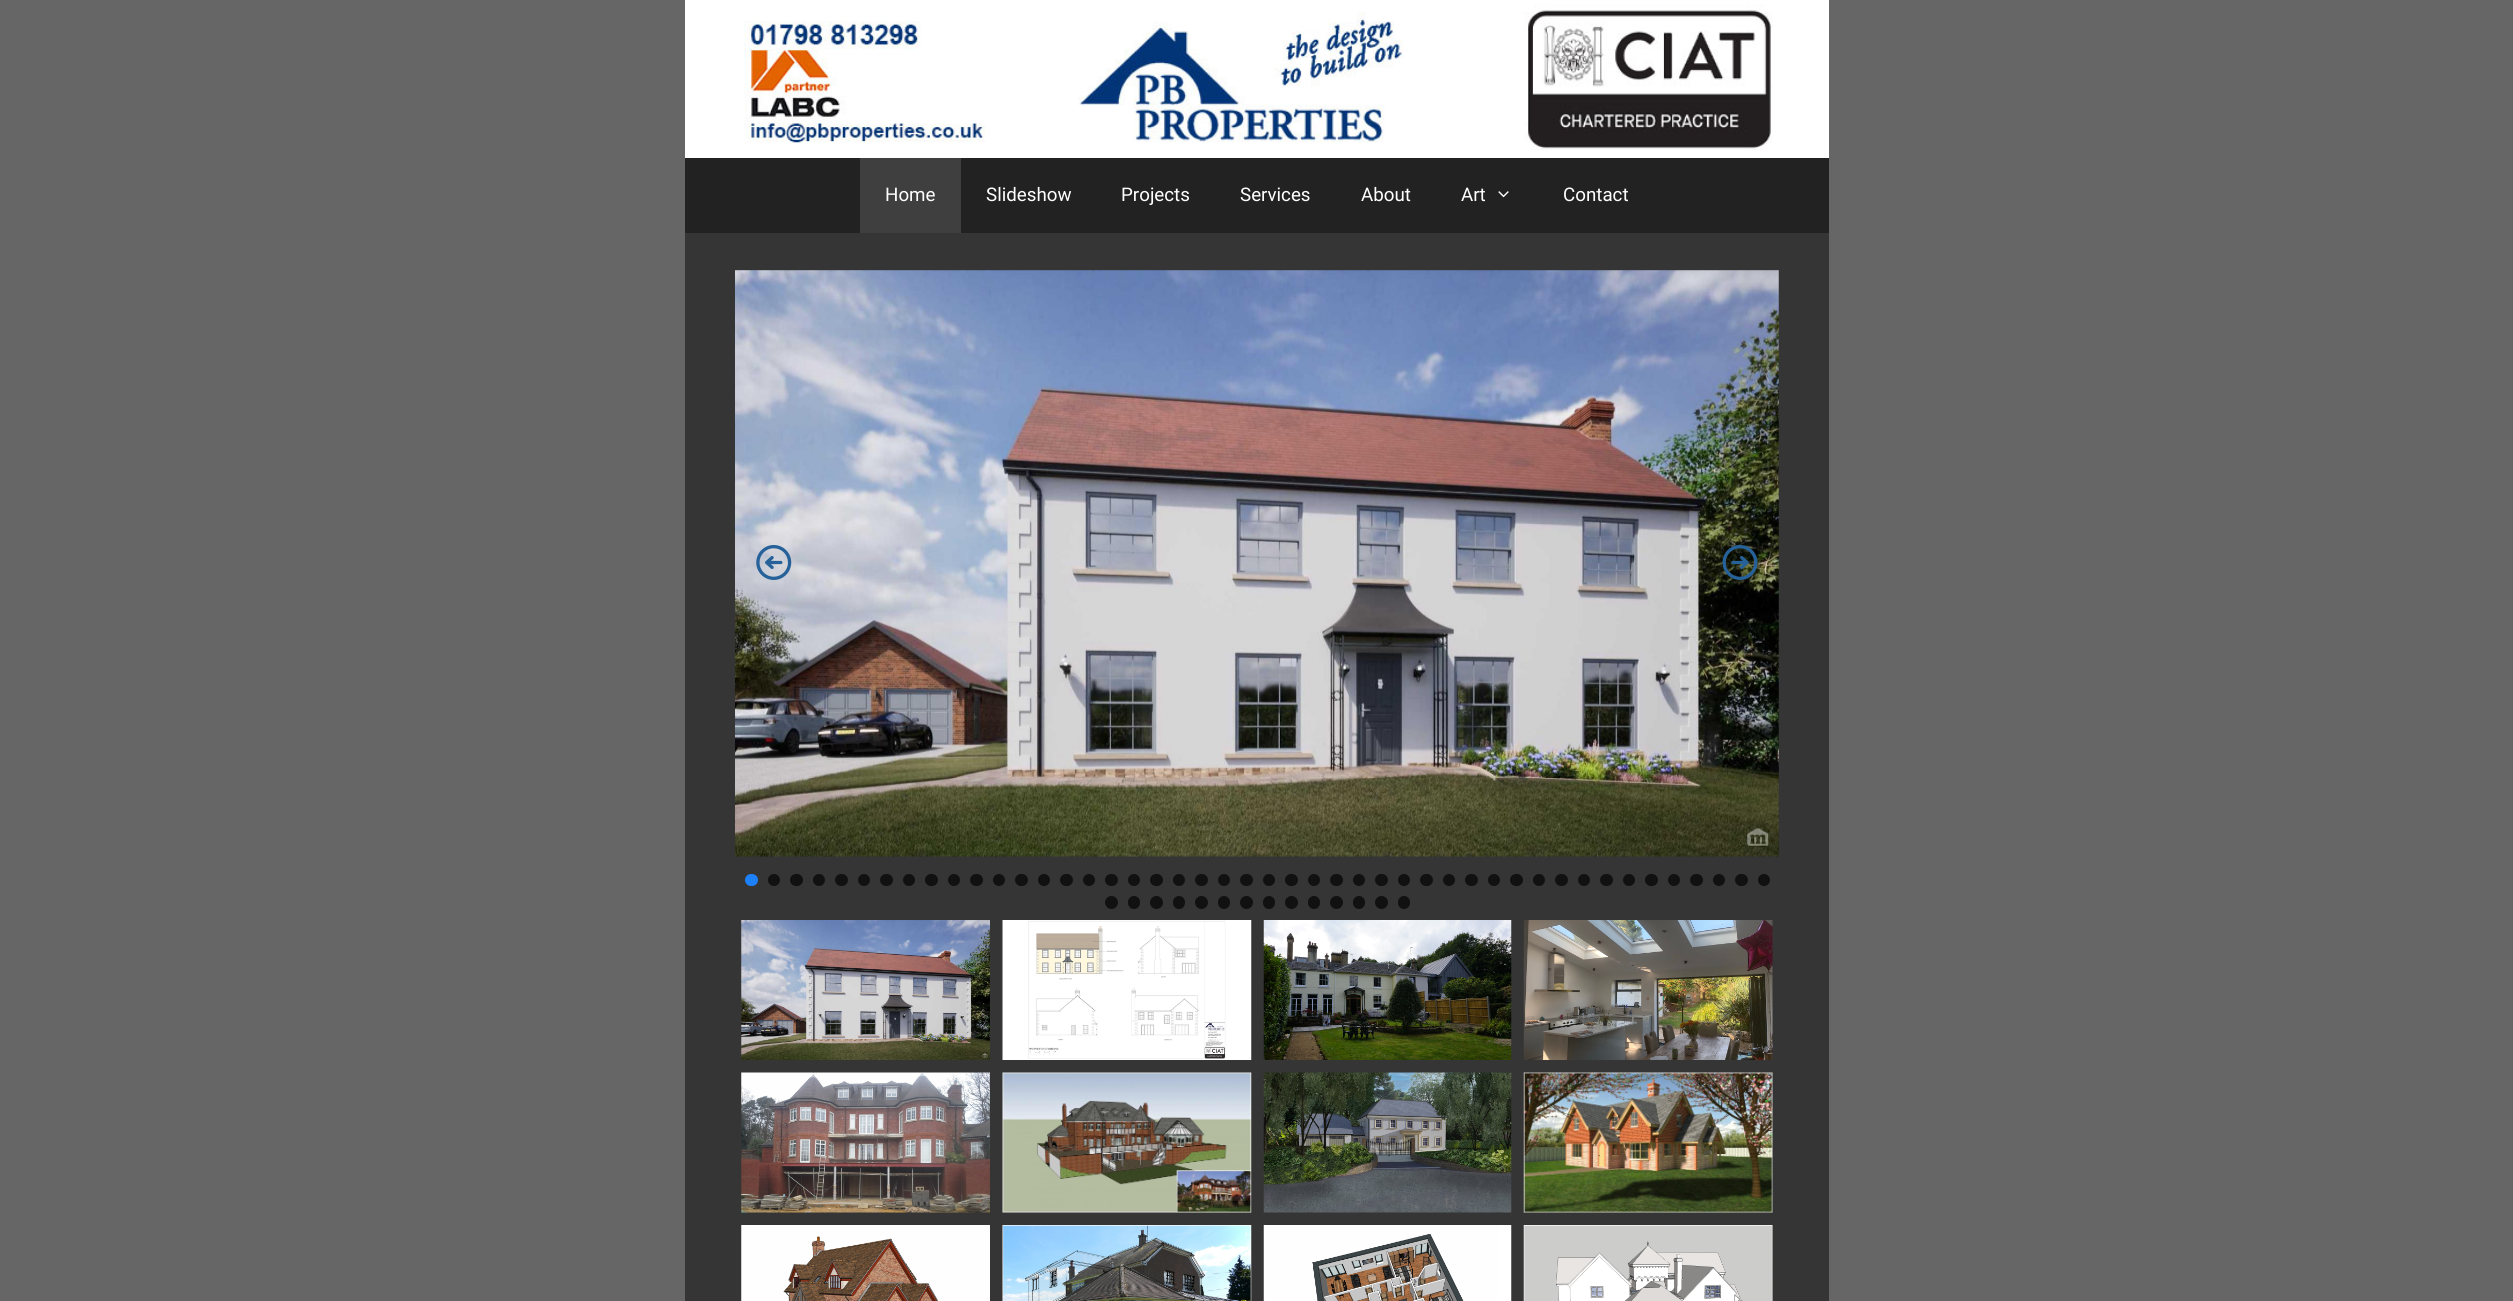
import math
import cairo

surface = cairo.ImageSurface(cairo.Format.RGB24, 2513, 1301)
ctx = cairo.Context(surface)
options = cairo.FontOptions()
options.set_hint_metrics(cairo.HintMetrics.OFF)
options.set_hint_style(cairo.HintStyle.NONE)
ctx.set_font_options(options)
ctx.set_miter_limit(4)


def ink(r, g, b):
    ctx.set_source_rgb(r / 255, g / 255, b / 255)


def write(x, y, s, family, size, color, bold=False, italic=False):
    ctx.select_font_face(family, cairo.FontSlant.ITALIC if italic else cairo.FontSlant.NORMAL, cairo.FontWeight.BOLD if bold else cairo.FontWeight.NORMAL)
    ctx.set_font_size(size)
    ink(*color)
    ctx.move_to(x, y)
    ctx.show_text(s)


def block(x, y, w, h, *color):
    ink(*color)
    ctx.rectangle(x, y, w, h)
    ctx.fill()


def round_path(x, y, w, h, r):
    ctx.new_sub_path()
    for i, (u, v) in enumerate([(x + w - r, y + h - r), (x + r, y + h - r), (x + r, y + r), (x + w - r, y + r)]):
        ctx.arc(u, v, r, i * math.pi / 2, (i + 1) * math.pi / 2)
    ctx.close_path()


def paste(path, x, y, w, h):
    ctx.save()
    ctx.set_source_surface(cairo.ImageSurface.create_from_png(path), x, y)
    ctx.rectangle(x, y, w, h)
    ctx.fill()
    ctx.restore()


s1 = dict(family="Roboto", size=18.75, color=(255, 255, 255))

ink(102, 102, 102)
ctx.paint()
block(685, 0, 1144, 158, 255, 255, 255)
paste("pic1.png", 744, 4, 1029, 146)
block(685, 158, 1144, 75, 34, 34, 34)
block(860, 158, 101, 75, 63, 63, 63)
write(885, 201, "Home", **s1)
write(986, 201, "Slideshow", **s1)
write(1121, 201, "Projects", **s1)
write(1240, 201, "Services", **s1)
write(1361, 201, "About", **s1)
write(1461, 201, "Art", **s1)
paste("pic2.png", 1498, 191, 11, 7)
write(1563, 201, "Contact", **s1)
block(685, 233, 1144, 1068, 53, 53, 53)
paste("pic3.png", 735, 270, 1044, 587)
paste("pic4.png", 756, 545, 36, 35)
paste("pic5.png", 1722, 545, 36, 35)
ink(29, 129, 249)
round_path(745, 874, 13, 12, 6)
ctx.fill()
ink(17, 17, 17)
ctx.arc(774, 880, 6, 0, 2 * math.pi)
ctx.fill()
round_path(790, 874, 13, 12, 6)
ctx.fill()
ctx.arc(819, 880, 6, 0, 2 * math.pi)
ctx.fill()
round_path(835, 874, 13, 12, 6)
ctx.fill()
ctx.arc(864, 880, 6, 0, 2 * math.pi)
ctx.fill()
round_path(880, 874, 13, 12, 6)
ctx.fill()
ctx.arc(909, 880, 6, 0, 2 * math.pi)
ctx.fill()
round_path(925, 874, 13, 12, 6)
ctx.fill()
ctx.arc(954, 880, 6, 0, 2 * math.pi)
ctx.fill()
round_path(970, 874, 13, 12, 6)
ctx.fill()
ctx.arc(999, 880, 6, 0, 2 * math.pi)
ctx.fill()
round_path(1015, 874, 13, 12, 6)
ctx.fill()
ctx.arc(1044, 880, 6, 0, 2 * math.pi)
ctx.fill()
round_path(1060, 874, 13, 12, 6)
ctx.fill()
ctx.arc(1089, 880, 6, 0, 2 * math.pi)
ctx.fill()
round_path(1105, 874, 13, 12, 6)
ctx.fill()
ctx.arc(1134, 880, 6, 0, 2 * math.pi)
ctx.fill()
round_path(1150, 874, 13, 12, 6)
ctx.fill()
ctx.arc(1179, 880, 6, 0, 2 * math.pi)
ctx.fill()
round_path(1195, 874, 13, 12, 6)
ctx.fill()
ctx.arc(1224, 880, 6, 0, 2 * math.pi)
ctx.fill()
round_path(1240, 874, 13, 12, 6)
ctx.fill()
ctx.arc(1269, 880, 6, 0, 2 * math.pi)
ctx.fill()
round_path(1285, 874, 13, 12, 6)
ctx.fill()
ctx.arc(1314, 880, 6, 0, 2 * math.pi)
ctx.fill()
round_path(1330, 874, 13, 12, 6)
ctx.fill()
ctx.arc(1359, 880, 6, 0, 2 * math.pi)
ctx.fill()
round_path(1375, 874, 13, 12, 6)
ctx.fill()
ctx.arc(1404, 880, 6, 0, 2 * math.pi)
ctx.fill()
round_path(1420, 874, 13, 12, 6)
ctx.fill()
ctx.arc(1449, 880, 6, 0, 2 * math.pi)
ctx.fill()
round_path(1465, 874, 13, 12, 6)
ctx.fill()
ctx.arc(1494, 880, 6, 0, 2 * math.pi)
ctx.fill()
round_path(1510, 874, 13, 12, 6)
ctx.fill()
ctx.arc(1539, 880, 6, 0, 2 * math.pi)
ctx.fill()
round_path(1555, 874, 13, 12, 6)
ctx.fill()
ctx.arc(1584, 880, 6, 0, 2 * math.pi)
ctx.fill()
round_path(1600, 874, 13, 12, 6)
ctx.fill()
ctx.arc(1629, 880, 6, 0, 2 * math.pi)
ctx.fill()
round_path(1645, 874, 13, 12, 6)
ctx.fill()
ctx.arc(1674, 880, 6, 0, 2 * math.pi)
ctx.fill()
round_path(1690, 874, 13, 12, 6)
ctx.fill()
ctx.arc(1719, 880, 6, 0, 2 * math.pi)
ctx.fill()
round_path(1735, 874, 13, 12, 6)
ctx.fill()
ctx.arc(1764, 880, 6, 0, 2 * math.pi)
ctx.fill()
ctx.arc(1111.5, 902.5, 6.5, 0, 2 * math.pi)
ctx.fill()
round_path(1128, 896, 12, 13, 6)
ctx.fill()
ctx.arc(1156.5, 902.5, 6.5, 0, 2 * math.pi)
ctx.fill()
round_path(1173, 896, 12, 13, 6)
ctx.fill()
ctx.arc(1201.5, 902.5, 6.5, 0, 2 * math.pi)
ctx.fill()
round_path(1218, 896, 12, 13, 6)
ctx.fill()
ctx.arc(1246.5, 902.5, 6.5, 0, 2 * math.pi)
ctx.fill()
round_path(1263, 896, 12, 13, 6)
ctx.fill()
ctx.arc(1291.5, 902.5, 6.5, 0, 2 * math.pi)
ctx.fill()
round_path(1308, 896, 12, 13, 6)
ctx.fill()
ctx.arc(1336.5, 902.5, 6.5, 0, 2 * math.pi)
ctx.fill()
round_path(1353, 896, 12, 13, 6)
ctx.fill()
ctx.arc(1381.5, 902.5, 6.5, 0, 2 * math.pi)
ctx.fill()
round_path(1398, 896, 12, 13, 6)
ctx.fill()
paste("pic6.png", 741, 920, 249, 140)
paste("pic7.png", 1002, 920, 250, 140)
paste("pic8.png", 1263, 920, 249, 140)
paste("pic9.png", 1523, 920, 250, 140)
paste("pic10.png", 741, 1072, 249, 141)
paste("pic11.png", 1002, 1072, 250, 141)
paste("pic12.png", 1263, 1072, 249, 141)
paste("pic13.png", 1523, 1072, 250, 141)
paste("pic14.png", 741, 1225, 249, 76)
paste("pic15.png", 1002, 1225, 250, 76)
paste("pic16.png", 1263, 1225, 249, 76)
paste("pic17.png", 1523, 1225, 250, 76)
surface.write_to_png("screenshot.png")
